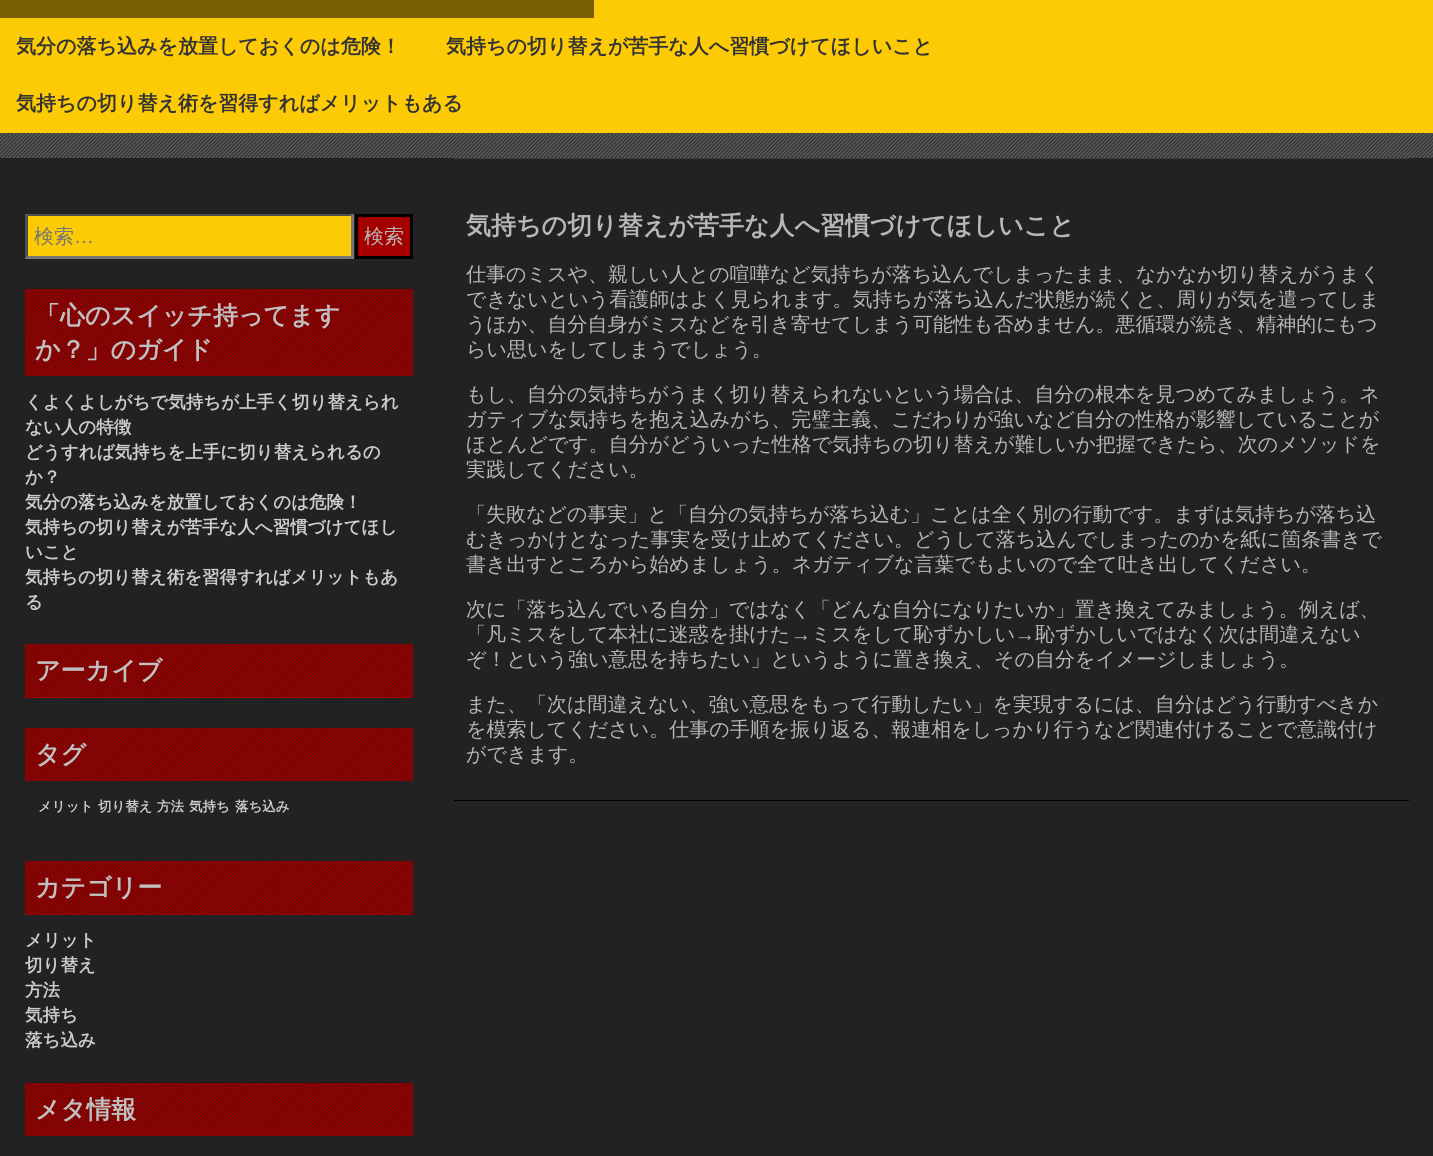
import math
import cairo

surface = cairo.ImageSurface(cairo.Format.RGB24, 1433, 1156)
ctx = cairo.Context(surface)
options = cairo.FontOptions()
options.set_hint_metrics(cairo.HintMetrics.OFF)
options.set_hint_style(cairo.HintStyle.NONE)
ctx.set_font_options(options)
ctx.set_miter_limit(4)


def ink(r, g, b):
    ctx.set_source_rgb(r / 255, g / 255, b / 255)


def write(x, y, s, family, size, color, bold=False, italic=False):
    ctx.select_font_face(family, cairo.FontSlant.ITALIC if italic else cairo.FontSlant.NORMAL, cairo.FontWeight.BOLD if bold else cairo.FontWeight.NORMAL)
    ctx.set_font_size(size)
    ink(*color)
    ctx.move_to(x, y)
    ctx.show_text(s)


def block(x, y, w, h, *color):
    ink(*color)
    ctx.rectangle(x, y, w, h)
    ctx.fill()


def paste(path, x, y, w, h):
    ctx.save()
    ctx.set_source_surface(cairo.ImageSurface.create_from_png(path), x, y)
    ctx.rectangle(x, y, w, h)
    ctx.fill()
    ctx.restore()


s1 = dict(family="WenQuanYi Zen Hei", size=20, color=(51, 51, 51), bold=True)
s2 = dict(family="WenQuanYi Zen Hei Medium", size=20, color=(117, 117, 117))
s3 = dict(family="Liberation Sans", size=20, color=(117, 117, 117))
s4 = dict(family="WenQuanYi Zen Hei Medium", size=20, color=(183, 183, 183))
s5 = dict(family="WenQuanYi Zen Hei", size=25, color=(192, 192, 192), bold=True)
s6 = dict(family="WenQuanYi Zen Hei", size=17.5, color=(204, 204, 204), bold=True)
s7 = dict(family="WenQuanYi Zen Hei", size=13.5, color=(204, 204, 204), bold=True)
s8 = dict(family="WenQuanYi Zen Hei", size=25, color=(183, 183, 183), bold=True)
s9 = dict(family="Liberation Sans", size=20, color=(183, 183, 183))

ink(51, 51, 51)
ctx.paint()
paste("pic1.png", 0, 133, 1433, 25)
block(0, 0, 1433, 133, 252, 203, 5)
block(0, 0, 594, 18, 122, 94, 2)
write(16, 53, "気分の落ち込みを放置しておくのは危険！", **s1)
write(446, 53, "気持ちの切り替えが苦手な人へ習慣づけてほしいこと", **s1)
write(16, 110, "気持ちの切り替え術を習得すればメリットもある", **s1)
block(0, 158, 1433, 998, 34, 34, 34)
block(25, 214, 329, 45, 252, 203, 5)
ink(79, 79, 79)
ctx.new_path()
ctx.move_to(25, 214)
ctx.line_to(354, 214)
ctx.line_to(351, 216)
ctx.line_to(28, 216)
ctx.close_path()
ctx.fill()
ink(118, 118, 118)
ctx.new_path()
ctx.move_to(354, 214)
ctx.line_to(354, 259)
ctx.line_to(351, 256)
ctx.line_to(351, 216)
ctx.close_path()
ctx.fill()
ctx.new_path()
ctx.move_to(354, 259)
ctx.line_to(25, 259)
ctx.line_to(28, 256)
ctx.line_to(351, 256)
ctx.close_path()
ctx.fill()
ink(79, 79, 79)
ctx.new_path()
ctx.move_to(25, 259)
ctx.line_to(25, 214)
ctx.line_to(28, 216)
ctx.line_to(28, 256)
ctx.close_path()
ctx.fill()
write(34, 243, "検索", **s2)
write(74, 243, "…", **s3)
ink(165, 0, 0)
ctx.rectangle(356.5, 215.5, 55, 42)
ctx.fill_preserve()
ink(0, 0, 0)
ctx.set_line_width(3)
ctx.stroke()
write(364, 243, "検索", **s4)
block(25, 289, 388, 87, 165, 0, 0)
paste("pic2.png", 25, 288, 388, 88)
write(35, 324, "「心のスイッチ持ってます", **s5)
write(35, 358, "か？」のガイド", **s5)
write(25, 408, "くよくよしがちで気持ちが上手く切り替えられ", **s6)
write(25, 433, "ない人の特徴", **s6)
write(25, 458, "どうすれば気持ちを上手に切り替えられるの", **s6)
write(25, 483, "か？", **s6)
write(25, 508, "気分の落ち込みを放置しておくのは危険！", **s6)
write(25, 533, "気持ちの切り替えが苦手な人へ習慣づけてほし", **s6)
write(25, 558, "いこと", **s6)
write(25, 583, "気持ちの切り替え術を習得すればメリットもあ", **s6)
write(25, 608, "る", **s6)
block(25, 644, 388, 54, 165, 0, 0)
paste("pic3.png", 25, 643, 388, 54)
write(35, 679, "アーカイブ", **s5)
block(25, 728, 388, 53, 165, 0, 0)
paste("pic4.png", 25, 727, 388, 54)
write(35, 763, "タグ", **s5)
write(38, 811, "メリット", **s7)
write(98, 811, "切り替え", **s7)
write(157, 811, "方法", **s7)
write(189, 811, "気持ち", **s7)
write(235, 811, "落ち込み", **s7)
block(25, 861, 388, 54, 165, 0, 0)
paste("pic5.png", 25, 861, 388, 54)
write(35, 896, "カテゴリー", **s5)
write(25, 946, "メリット", **s6)
write(25, 971, "切り替え", **s6)
write(25, 996, "方法", **s6)
write(25, 1021, "気持ち", **s6)
write(25, 1046, "落ち込み", **s6)
block(25, 1083, 388, 53, 165, 0, 0)
paste("pic4.png", 25, 1082, 388, 54)
write(35, 1118, "メタ情報", **s5)
block(454, 158, 955, 1, 61, 61, 61)
block(454, 800, 955, 1, 0, 0, 0)
write(466, 234, "気持ちの切り替えが苦手な人へ習慣づけてほしいこと", **s8)
write(466, 281, "仕事のミスや、親しい人との喧嘩など気持ちが落ち込んでしまったまま、なかなか切り替えがうまく", **s4)
write(466, 306, "できないという看護師はよく見られます。気持ちが落ち込んだ状態が続くと、周りが気を遣ってしま", **s4)
write(466, 331, "うほか、自分自身がミスなどを引き寄せてしまう可能性も否めません。悪循環が続き、精神的にもつ", **s4)
write(466, 356, "らい思いをしてしまうでしょう。", **s4)
write(466, 401, "もし、自分の気持ちがうまく切り替えられないという場合は、自分の根本を見つめてみましょう。ネ", **s4)
write(466, 426, "ガティブな気持ちを抱え込みがち、完璧主義、こだわりが強いなど自分の性格が影響していることが", **s4)
write(466, 451, "ほとんどです。自分がどういった性格で気持ちの切り替えが難しいか把握できたら、次のメソッドを", **s4)
write(466, 476, "実践してください。", **s4)
write(466, 521, "「失敗などの事実」と「自分の気持ちが落ち込む」ことは全く別の行動です。まずは気持ちが落ち込", **s4)
write(466, 546, "むきっかけとなった事実を受け止めてください。どうして落ち込んでしまったのかを紙に箇条書きで", **s4)
write(466, 571, "書き出すところから始めましょう。ネガティブな言葉でもよいので全て吐き出してください。", **s4)
write(466, 616, "次に「落ち込んでいる自分」ではなく「どんな自分になりたいか」置き換えてみましょう。例えば、", **s4)
write(466, 641, "「凡ミスをして本社に迷惑を掛けた", **s4)
write(791, 641, "→", **s9)
write(811, 641, "ミスをして恥ずかしい", **s4)
write(1015, 641, "→", **s9)
write(1035, 641, "恥ずかしいではなく次は間違えない", **s4)
write(466, 666, "ぞ！という強い意思を持ちたい」というように置き換え、その自分をイメージしましょう。", **s4)
write(466, 711, "また、「次は間違えない、強い意思をもって行動したい」を実現するには、自分はどう行動すべきか", **s4)
write(466, 736, "を模索してください。仕事の手順を振り返る、報連相をしっかり行うなど関連付けることで意識付け", **s4)
write(466, 761, "ができます。", **s4)
surface.write_to_png("screenshot.png")
